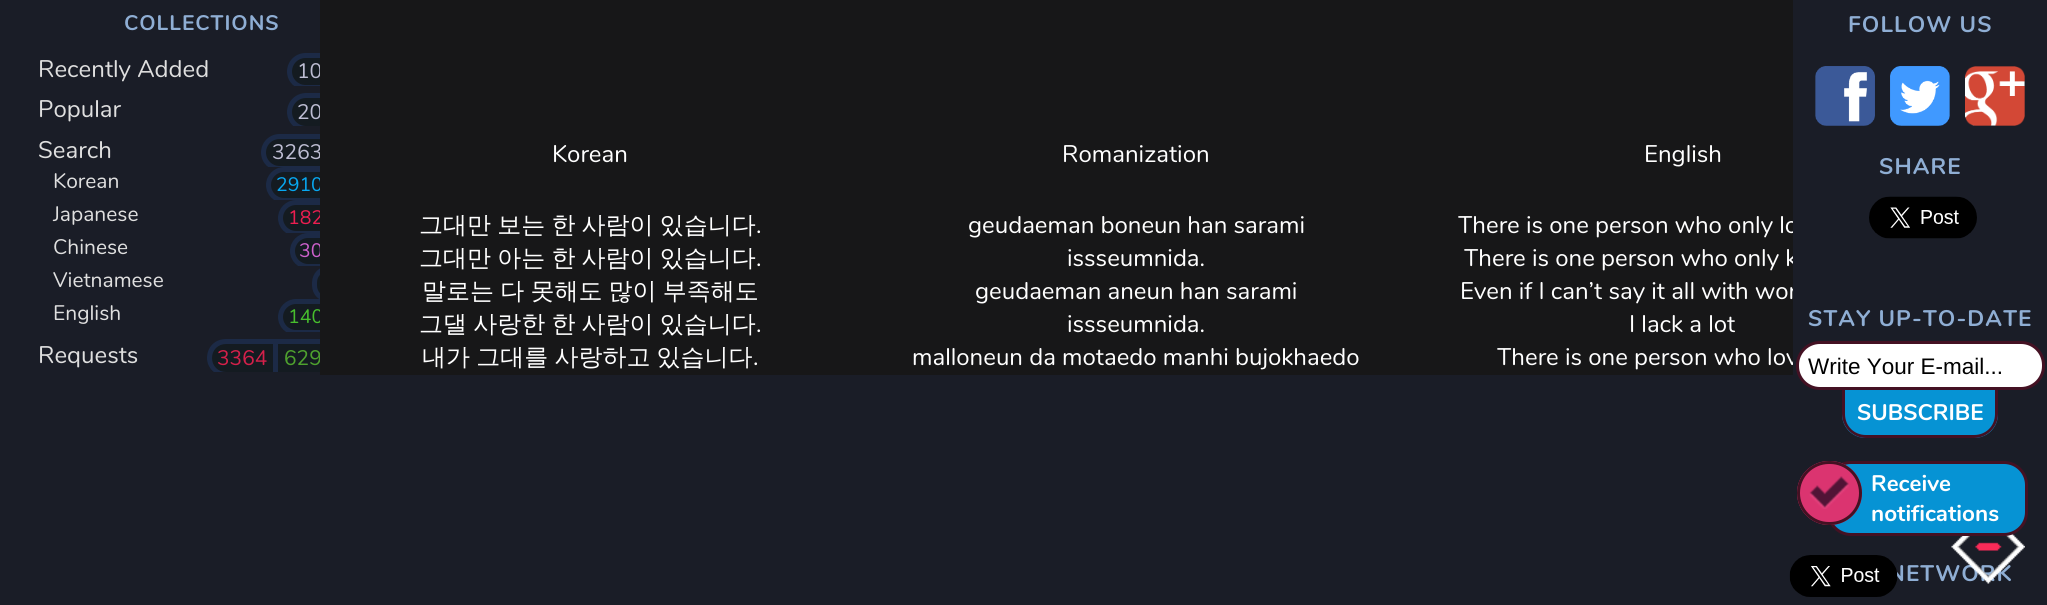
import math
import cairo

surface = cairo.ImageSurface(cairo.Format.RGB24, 2047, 605)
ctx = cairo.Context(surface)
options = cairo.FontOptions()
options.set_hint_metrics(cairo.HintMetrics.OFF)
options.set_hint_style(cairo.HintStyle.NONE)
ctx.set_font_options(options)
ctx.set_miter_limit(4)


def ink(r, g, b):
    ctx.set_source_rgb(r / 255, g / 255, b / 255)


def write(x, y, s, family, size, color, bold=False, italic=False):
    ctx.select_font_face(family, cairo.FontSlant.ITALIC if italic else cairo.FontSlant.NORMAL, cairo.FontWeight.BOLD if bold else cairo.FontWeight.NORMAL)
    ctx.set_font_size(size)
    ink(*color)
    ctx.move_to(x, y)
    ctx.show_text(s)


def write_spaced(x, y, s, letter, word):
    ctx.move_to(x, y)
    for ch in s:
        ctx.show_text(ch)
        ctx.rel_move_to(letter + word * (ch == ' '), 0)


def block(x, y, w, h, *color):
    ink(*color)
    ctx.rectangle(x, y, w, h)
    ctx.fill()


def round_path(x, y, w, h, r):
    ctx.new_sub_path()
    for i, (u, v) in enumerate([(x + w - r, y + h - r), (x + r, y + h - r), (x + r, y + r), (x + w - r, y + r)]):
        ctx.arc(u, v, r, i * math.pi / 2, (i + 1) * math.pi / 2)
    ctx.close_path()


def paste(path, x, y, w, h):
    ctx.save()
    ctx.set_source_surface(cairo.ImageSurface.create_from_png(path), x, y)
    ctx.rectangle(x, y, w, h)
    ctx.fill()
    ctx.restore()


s1 = dict(family="Nunito", size=24, color=(223, 223, 223))
s2 = dict(family="Nunito", size=21, color=(189, 189, 211))
s3 = dict(family="Nunito", size=21, color=(223, 223, 223))
s4 = dict(family="Nunito", size=19.5, color=(7, 168, 242))
s5 = dict(family="Nunito", size=19.5, color=(236, 30, 80))
s6 = dict(family="Nunito", size=19.5, color=(206, 97, 205))
s7 = dict(family="Nunito", size=19.5, color=(71, 191, 45))
s8 = dict(family="Nunito", size=21, color=(213, 32, 74))
s9 = dict(family="Nunito", size=21, color=(78, 161, 46))
s10 = dict(family="Nunito", size=24, color=(255, 255, 255))
s11 = dict(family="Liberation Sans", size=22.5, color=(0, 0, 0))
s12 = dict(family="Nunito", size=22.5, color=(255, 255, 255), bold=True)

ink(26, 29, 39)
ctx.paint()
ctx.select_font_face("Nunito", cairo.FontSlant.NORMAL, cairo.FontWeight.BOLD)
ctx.set_font_size(21)
ink(143, 174, 212)
write_spaced(124, 30, "COLLECTIONS", 1, 0)
write(38, 77, "Recently Added", **s1)
ctx.save()
ctx.rectangle(0, 45, 375, 41)
ctx.clip()
ink(20, 27, 33)
ctx.new_path()
ctx.move_to(305.5, 53)
ctx.line_to(320, 53)
ctx.line_to(320, 90)
ctx.line_to(305.5, 90)
ctx.curve_to(295.5, 90, 287, 81.5, 287, 71.5)
ctx.curve_to(287, 61.5, 295.5, 53, 305.5, 53)
ctx.close_path()
ctx.fill()
ctx.restore()
ctx.save()
ctx.rectangle(0, 45, 320, 41)
ctx.clip()
round_path(289.5, 55.5, 53, 32, 16)
ink(28, 42, 70)
ctx.set_line_width(5)
ctx.stroke()
ctx.restore()
write(297, 78, "10", **s2)
write(38, 117, "Popular", **s1)
ctx.save()
ctx.rectangle(0, 86, 375, 40)
ctx.clip()
ink(20, 27, 33)
ctx.new_path()
ctx.move_to(306, 93)
ctx.line_to(320, 93)
ctx.line_to(320, 131)
ctx.line_to(306, 131)
ctx.curve_to(295.5, 131, 287, 122.5, 287, 112)
ctx.curve_to(287, 101.5, 295.5, 93, 306, 93)
ctx.close_path()
ctx.fill()
ctx.restore()
ctx.save()
ctx.rectangle(0, 86, 320, 40)
ctx.clip()
round_path(289.5, 95.5, 53, 33, 16.5)
ink(28, 42, 70)
ctx.set_line_width(5)
ctx.stroke()
ctx.restore()
write(297, 119, "20", **s2)
write(38, 158, "Search", **s1)
ctx.save()
ctx.rectangle(0, 126, 375, 41)
ctx.clip()
ink(20, 27, 33)
ctx.new_path()
ctx.move_to(279.5, 134)
ctx.line_to(320, 134)
ctx.line_to(320, 171)
ctx.line_to(279.5, 171)
ctx.curve_to(269.5, 171, 261, 162.5, 261, 152.5)
ctx.curve_to(261, 142.5, 269.5, 134, 279.5, 134)
ctx.close_path()
ctx.fill()
ctx.restore()
ctx.save()
ctx.rectangle(0, 126, 320, 41)
ctx.clip()
round_path(263.5, 136.5, 79, 32, 16)
ink(28, 42, 70)
ctx.set_line_width(5)
ctx.stroke()
ctx.restore()
write(272, 159, "3263", **s2)
write(53, 188, "Korean", **s3)
ctx.save()
ctx.rectangle(0, 167, 375, 33)
ctx.clip()
ink(20, 27, 33)
ctx.new_path()
ctx.move_to(284, 167)
ctx.line_to(320, 167)
ctx.line_to(320, 203)
ctx.line_to(284, 203)
ctx.curve_to(274, 203, 266, 195, 266, 185)
ctx.curve_to(266, 175, 274, 167, 284, 167)
ctx.close_path()
ctx.fill()
ctx.restore()
ctx.save()
ctx.rectangle(0, 167, 320, 33)
ctx.clip()
round_path(268.5, 169.5, 74, 31, 15.5)
ink(28, 42, 70)
ctx.set_line_width(5)
ctx.stroke()
ctx.restore()
write(276, 191, "2910", **s4)
write(53, 221, "Japanese", **s3)
ctx.save()
ctx.rectangle(0, 200, 375, 33)
ctx.clip()
ink(20, 27, 33)
ctx.new_path()
ctx.move_to(296, 200)
ctx.line_to(320, 200)
ctx.line_to(320, 236)
ctx.line_to(296, 236)
ctx.curve_to(286, 236, 278, 228, 278, 218)
ctx.curve_to(278, 208, 286, 200, 296, 200)
ctx.close_path()
ctx.fill()
ctx.restore()
ctx.save()
ctx.rectangle(0, 200, 320, 33)
ctx.clip()
round_path(280.5, 202.5, 62, 31, 15.5)
ink(28, 42, 70)
ctx.set_line_width(5)
ctx.stroke()
ctx.restore()
write(288, 224, "182", **s5)
write(53, 254, "Chinese", **s3)
ctx.save()
ctx.rectangle(0, 233, 375, 33)
ctx.clip()
ink(20, 27, 33)
ctx.new_path()
ctx.move_to(308, 233)
ctx.line_to(320, 233)
ctx.line_to(320, 269)
ctx.line_to(308, 269)
ctx.curve_to(298, 269, 290, 261, 290, 251)
ctx.curve_to(290, 241, 298, 233, 308, 233)
ctx.close_path()
ctx.fill()
ctx.restore()
ctx.save()
ctx.rectangle(0, 233, 320, 33)
ctx.clip()
round_path(292.5, 235.5, 50, 31, 15.5)
ink(28, 42, 70)
ctx.set_line_width(5)
ctx.stroke()
ctx.restore()
write(299, 257, "30", **s6)
write(53, 287, "Vietnamese", **s3)
ink(20, 27, 33)
ctx.new_path()
ctx.move_to(328.5, 266)
ctx.line_to(320, 266)
ctx.line_to(320, 302)
ctx.line_to(328.5, 302)
ctx.curve_to(319.5, 302, 312, 294.5, 312, 285.5)
ctx.line_to(312, 282.5)
ctx.curve_to(312, 273.5, 319.5, 266, 328.5, 266)
ctx.close_path()
ctx.fill()
round_path(314.5, 268.5, 28, 31, 14)
ink(28, 42, 70)
ctx.set_line_width(5)
ctx.stroke()
write(53, 320, "English", **s3)
ctx.save()
ctx.rectangle(0, 299, 375, 33)
ctx.clip()
ink(20, 27, 33)
ctx.new_path()
ctx.move_to(296, 299)
ctx.line_to(320, 299)
ctx.line_to(320, 335)
ctx.line_to(296, 335)
ctx.curve_to(286, 335, 278, 327, 278, 317)
ctx.curve_to(278, 307, 286, 299, 296, 299)
ctx.close_path()
ctx.fill()
ctx.restore()
ctx.save()
ctx.rectangle(0, 299, 320, 33)
ctx.clip()
round_path(280.5, 301.5, 62, 31, 15.5)
ink(28, 42, 70)
ctx.stroke()
ctx.restore()
write(288, 323, "140", **s7)
write(38, 363, "Requests", **s1)
ctx.save()
ctx.rectangle(0, 332, 320, 40)
ctx.clip()
ink(20, 27, 33)
ctx.new_path()
ctx.move_to(226, 339)
ctx.line_to(273, 339)
ctx.line_to(273, 377)
ctx.line_to(226, 377)
ctx.curve_to(215.5, 377, 207, 368.5, 207, 358)
ctx.curve_to(207, 347.5, 215.5, 339, 226, 339)
ctx.close_path()
ctx.fill()
ink(28, 42, 70)
ctx.set_fill_rule(cairo.FillRule.EVEN_ODD)
ctx.new_path()
ctx.move_to(226, 339)
ctx.line_to(273, 339)
ctx.line_to(273, 376)
ctx.line_to(226, 376)
ctx.curve_to(215, 376, 207, 368, 207, 358)
ctx.curve_to(207, 347, 215, 339, 226, 339)
ctx.close_path()
ctx.move_to(226, 344)
ctx.line_to(273, 344)
ctx.line_to(273, 372)
ctx.line_to(226, 372)
ctx.curve_to(218, 372, 212, 366, 212, 358)
ctx.curve_to(212, 350, 218, 344, 226, 344)
ctx.close_path()
ctx.fill()
ctx.restore()
write(217, 365, "3364", **s8)
block(278, 344, 42, 28, 20, 27, 33)
ctx.save()
ctx.rectangle(0, 332, 320, 40)
ctx.clip()
ctx.new_path()
ctx.move_to(275.5, 341.5)
ctx.line_to(326, 341.5)
ctx.curve_to(335, 341.5, 342.5, 349, 342.5, 358)
ctx.curve_to(342.5, 367, 335, 374.5, 326, 374.5)
ctx.line_to(275.5, 374.5)
ctx.close_path()
ink(28, 42, 70)
ctx.stroke()
ctx.restore()
write(284, 365, "629", **s9)
block(320, 0, 1473, 375, 23, 23, 24)
write(552, 162, "Korean", **s10)
ctx.select_font_face("WenQuanYi Zen Hei Medium")
write_spaced(419, 233, "그대만 보는 한 사람이 있습니다", 0, -1)
write(756, 233, ".", **s10)
ctx.select_font_face("WenQuanYi Zen Hei Medium")
write_spaced(419, 266, "그대만 아는 한 사람이 있습니다", 0, -1)
write(756, 266, ".", **s10)
ctx.select_font_face("WenQuanYi Zen Hei Medium")
write_spaced(422, 299, "말로는 다 못해도 많이 부족해도", 0, -1)
write_spaced(419, 332, "그댈 사랑한 한 사람이 있습니다", 0, -1)
write(756, 332, ".", **s10)
ctx.select_font_face("WenQuanYi Zen Hei Medium")
write_spaced(422, 365, "내가 그대를 사랑하고 있습니다", 0, -1)
write(753, 365, ".", **s10)
write(1062, 162, "Romanization", **s10)
write(968, 233, "geudaeman boneun han sarami", **s10)
write(1067, 266, "issseumnida.", **s10)
write(975, 299, "geudaeman aneun han sarami", **s10)
write(1067, 332, "issseumnida.", **s10)
write(912, 365, "malloneun da motaedo manhi bujokhaedo", **s10)
write(1644, 162, "English", **s10)
ctx.save()
ctx.rectangle(1443, 194, 350, 181)
ctx.clip()
write(1458, 233, "There is one person who only lo", **s10)
write(1464, 266, "There is one person who only k", **s10)
write(1460, 299, "Even if I can’t say it all with wor", **s10)
ctx.restore()
write(1629, 332, "I lack a lot", **s10)
ctx.save()
ctx.rectangle(1443, 194, 350, 181)
ctx.clip()
write(1497, 365, "There is one person who lov", **s10)
ctx.restore()
ctx.select_font_face("Nunito", cairo.FontSlant.NORMAL, cairo.FontWeight.BOLD)
ctx.set_font_size(22.5)
ink(143, 174, 212)
write_spaced(1888, 581, "NETWORK", 1.1, 0)
paste("pic1.png", 1789, 555, 109, 42)
paste("pic2.png", 1951, 534, 74, 50)
write_spaced(1848, 32, "FOLLOW US", 1.1, 0)
paste("pic3.png", 1815, 66, 60, 60)
paste("pic4.png", 1890, 66, 60, 60)
paste("pic5.png", 1965, 66, 60, 60)
write_spaced(1879, 174, "SHARE", 1.1, 0)
paste("pic6.png", 1869, 196, 108, 43)
write_spaced(1808, 326, "STAY UP-TO-DATE", 1.1, 0)
ink(255, 255, 255)
round_path(1797.5, 342.5, 246, 46, 22.5)
ctx.fill_preserve()
ink(68, 17, 35)
ctx.set_line_width(3)
ctx.stroke()
write(1808, 374, "Write Your E-mail...", **s11)
ink(6, 147, 212)
ctx.new_path()
ctx.move_to(1842, 390)
ctx.line_to(1998, 390)
ctx.line_to(1998, 414)
ctx.curve_to(1998, 427.5, 1987.5, 438, 1974, 438)
ctx.line_to(1866, 438)
ctx.curve_to(1852.5, 438, 1842, 427.5, 1842, 414)
ctx.close_path()
ctx.fill()
ink(68, 17, 35)
ctx.set_fill_rule(cairo.FillRule.EVEN_ODD)
ctx.new_path()
ctx.move_to(1842, 390)
ctx.line_to(1998, 390)
ctx.line_to(1998, 414)
ctx.curve_to(1998, 427, 1987, 438, 1974, 438)
ctx.line_to(1866, 438)
ctx.curve_to(1853, 438, 1842, 427, 1842, 414)
ctx.close_path()
ctx.move_to(1845, 390)
ctx.line_to(1995, 390)
ctx.line_to(1995, 414)
ctx.curve_to(1995, 426, 1986, 435, 1974, 435)
ctx.line_to(1866, 435)
ctx.curve_to(1854, 435, 1845, 426, 1845, 414)
ctx.close_path()
ctx.fill()
write(1857, 420, "SUBSCRIBE", **s12)
ink(6, 147, 212)
round_path(1828.5, 462.5, 198, 72, 22.5)
ctx.fill_preserve()
ink(68, 17, 35)
ctx.stroke()
ink(219, 52, 112)
round_path(1797, 461, 65, 64, 32)
ctx.fill()
paste("pic7.png", 1809, 476, 40, 33)
round_path(1798.5, 462.5, 62, 61, 30.5)
ink(68, 17, 35)
ctx.stroke()
write(1871, 491, "Receive", **s12)
write(1871, 521, "notifications", **s12)
surface.write_to_png("screenshot.png")
